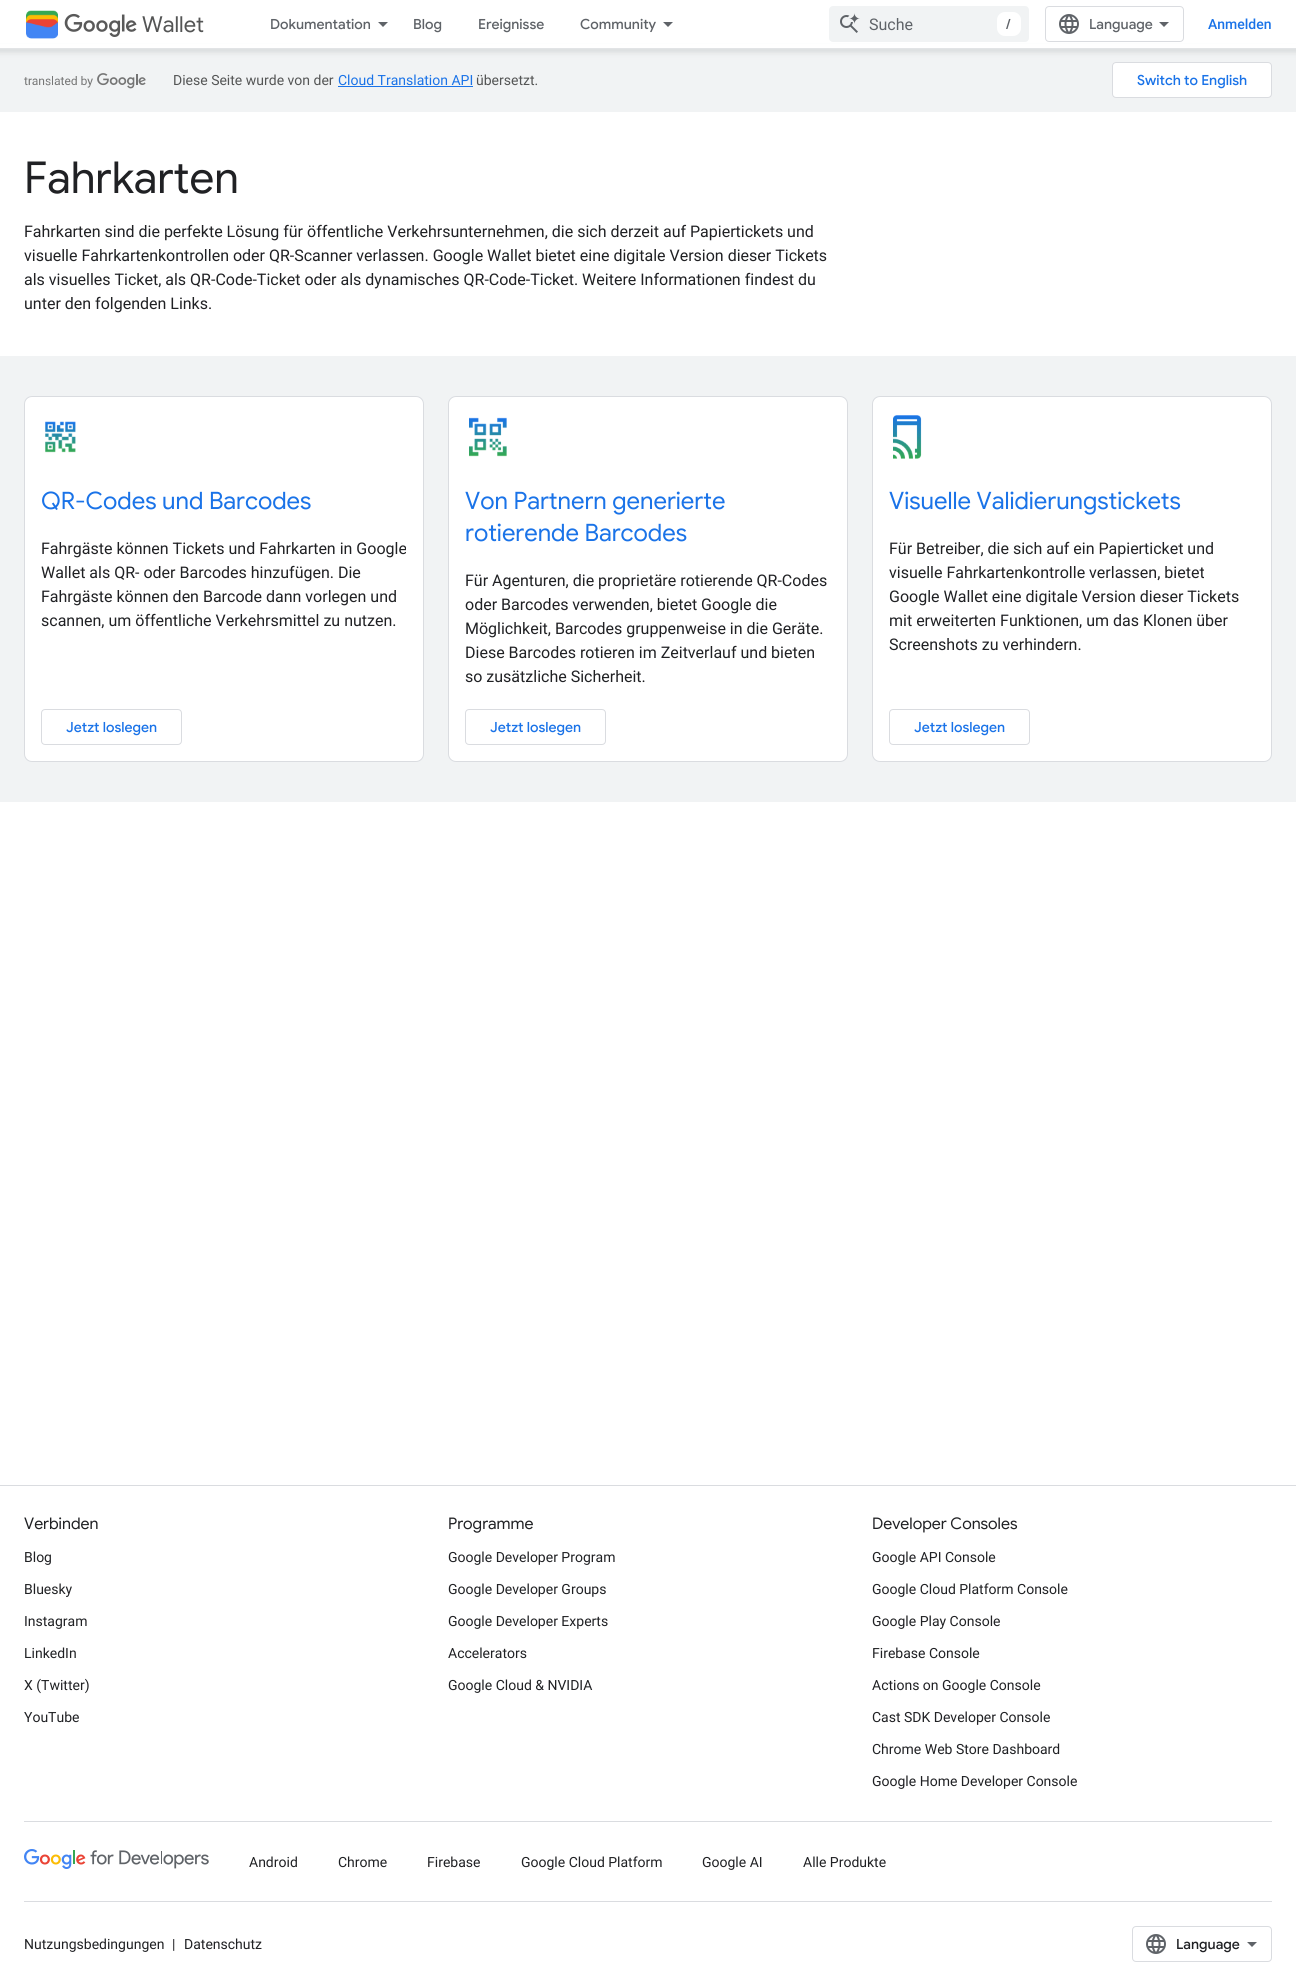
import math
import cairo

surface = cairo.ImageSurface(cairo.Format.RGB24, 1296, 1986)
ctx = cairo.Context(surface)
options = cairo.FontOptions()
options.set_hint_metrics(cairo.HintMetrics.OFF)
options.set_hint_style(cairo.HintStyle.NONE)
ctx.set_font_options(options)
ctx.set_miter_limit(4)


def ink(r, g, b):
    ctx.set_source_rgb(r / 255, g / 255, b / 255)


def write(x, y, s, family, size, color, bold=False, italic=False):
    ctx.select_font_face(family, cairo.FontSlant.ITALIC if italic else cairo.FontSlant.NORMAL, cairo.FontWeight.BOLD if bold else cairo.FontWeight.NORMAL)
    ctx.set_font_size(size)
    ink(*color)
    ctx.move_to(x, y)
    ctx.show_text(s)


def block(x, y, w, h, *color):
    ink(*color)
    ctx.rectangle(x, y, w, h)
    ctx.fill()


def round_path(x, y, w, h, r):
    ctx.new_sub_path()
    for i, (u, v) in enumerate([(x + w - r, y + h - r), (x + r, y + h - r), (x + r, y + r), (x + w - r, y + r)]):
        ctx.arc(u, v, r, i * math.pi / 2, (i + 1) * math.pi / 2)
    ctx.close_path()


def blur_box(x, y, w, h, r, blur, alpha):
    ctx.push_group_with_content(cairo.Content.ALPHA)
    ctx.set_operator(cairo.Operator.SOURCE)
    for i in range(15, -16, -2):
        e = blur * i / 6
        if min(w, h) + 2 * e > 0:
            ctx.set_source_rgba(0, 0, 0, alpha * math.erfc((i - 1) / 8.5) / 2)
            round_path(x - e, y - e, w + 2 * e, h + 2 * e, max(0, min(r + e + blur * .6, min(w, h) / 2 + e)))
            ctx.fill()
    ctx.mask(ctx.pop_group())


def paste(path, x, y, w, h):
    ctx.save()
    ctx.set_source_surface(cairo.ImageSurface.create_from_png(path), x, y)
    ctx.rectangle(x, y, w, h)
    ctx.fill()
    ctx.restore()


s1 = dict(family="Google Sans", size=22, color=(84, 85, 85))
s2 = dict(family="Google Sans Medium", size=14, color=(95, 99, 104))
s3 = dict(family="Roboto", size=16, color=(95, 99, 104))
s4 = dict(family="Roboto Medium", size=14, color=(26, 115, 232))
s5 = dict(family="Roboto", size=14, color=(84, 85, 85))
s6 = dict(family="Roboto", size=14, color=(26, 115, 232))
s7 = dict(family="Google Sans Medium", size=14, color=(26, 115, 232))
s8 = dict(family="Google Sans", size=44, color=(32, 33, 36))
s9 = dict(family="Roboto", size=16, color=(32, 33, 36))
s10 = dict(family="Google Sans", size=24, color=(26, 115, 232))
s11 = dict(family="Google Sans", size=16, color=(32, 33, 36))
s12 = dict(family="Roboto", size=14, color=(32, 33, 36))
s13 = dict(family="Google Sans Medium", size=14, color=(32, 33, 36))

ink(255, 255, 255)
ctx.paint()
block(0, 48, 1296, 64, 241, 243, 244)
ink(60, 64, 67)
blur_box(-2, 48, 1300, 4, 0, 3, 0.15)
block(0, 44, 1296, 4, 255, 255, 255)
paste("pic1.png", 26, 10, 32, 29)
paste("pic2.png", 64, 13, 73, 24)
write(142, 32, "Wallet", **s1)
write(270, 29, "Dokumentation", **s2)
ctx.new_path()
ctx.move_to(378, 22)
ctx.line_to(388, 22)
ctx.line_to(383, 27)
ctx.close_path()
ctx.fill()
write(413, 29, "Blog", **s2)
write(478, 29, "Ereignisse", **s2)
write(580, 29, "Community", **s2)
ctx.new_path()
ctx.move_to(663, 22)
ctx.line_to(673, 22)
ctx.line_to(668, 27)
ctx.close_path()
ctx.fill()
ink(241, 243, 244)
round_path(829, 6, 200, 36, 4)
ctx.fill()
paste("pic3.png", 840, 13, 20, 20)
write(869, 30, "Suche", **s3)
ink(255, 255, 255)
round_path(997, 12, 24, 24, 8)
ctx.fill()
write(1006, 29, "/", **s2)
round_path(1045.5, 6.5, 138, 35, 3.5)
ink(218, 220, 224)
ctx.set_line_width(1)
ctx.stroke()
paste("pic4.png", 1059, 14, 20, 20)
write(1089, 29, "Language", **s2)
ctx.new_path()
ctx.move_to(1164, 27)
ctx.line_to(1159, 22)
ctx.line_to(1169, 22)
ctx.close_path()
ctx.fill()
write(1208, 29, "Anmelden", **s4)
paste("pic5.png", 24, 73, 122, 16)
write(173, 85, "Diese Seite wurde von der", **s5)
write(338, 85, "Cloud Translation API", **s6)
block(338, 86, 135, 1, 26, 115, 232)
write(476, 85, "übersetzt.", **s5)
ink(255, 255, 255)
round_path(1112.5, 62.5, 159, 35, 3.5)
ctx.fill_preserve()
ink(218, 220, 224)
ctx.stroke()
write(1137, 85, "Switch to English", **s7)
write(24, 193, "Fahrkarten", **s8)
write(24, 237, "Fahrkarten sind die perfekte Lösung für öffentliche Verkehrsunternehmen, die sich derzeit auf Papiertickets und", **s9)
write(24, 261, "visuelle Fahrkartenkontrollen oder QR-Scanner verlassen. Google Wallet bietet eine digitale Version dieser Tickets", **s9)
write(24, 285, "als visuelles Ticket, als QR-Code-Ticket oder als dynamisches QR-Code-Ticket. Weitere Informationen findest du", **s9)
write(24, 309, "unter den folgenden Links.", **s9)
block(0, 356, 1296, 446, 241, 243, 244)
ink(255, 255, 255)
round_path(24.5, 396.5, 399, 365, 7.5)
ctx.fill_preserve()
ink(218, 220, 224)
ctx.stroke()
paste("pic6.png", 45, 421, 31, 32)
write(41, 509, "QR-Codes und Barcodes", **s10)
write(41, 554, "Fahrgäste können Tickets und Fahrkarten in Google", **s9)
write(41, 578, "Wallet als QR- oder Barcodes hinzufügen. Die", **s9)
write(41, 602, "Fahrgäste können den Barcode dann vorlegen und", **s9)
write(41, 626, "scannen, um öffentliche Verkehrsmittel zu nutzen.", **s9)
round_path(41.5, 709.5, 140, 35, 3.5)
ink(218, 220, 224)
ctx.stroke()
write(66, 732, "Jetzt loslegen", **s7)
ink(255, 255, 255)
round_path(448.5, 396.5, 399, 365, 7.5)
ctx.fill_preserve()
ink(218, 220, 224)
ctx.stroke()
paste("pic7.png", 469, 417, 38, 40)
write(465, 509, "Von Partnern generierte", **s10)
write(465, 541, "rotierende Barcodes", **s10)
write(465, 586, "Für Agenturen, die proprietäre rotierende QR-Codes", **s9)
write(465, 610, "oder Barcodes verwenden, bietet Google die", **s9)
write(465, 634, "Möglichkeit, Barcodes gruppenweise in die Geräte.", **s9)
write(465, 658, "Diese Barcodes rotieren im Zeitverlauf und bieten", **s9)
write(465, 682, "so zusätzliche Sicherheit.", **s9)
round_path(465.5, 709.5, 140, 35, 3.5)
ink(218, 220, 224)
ctx.stroke()
write(490, 732, "Jetzt loslegen", **s7)
ink(255, 255, 255)
round_path(872.5, 396.5, 399, 365, 7.5)
ctx.fill_preserve()
ink(218, 220, 224)
ctx.stroke()
paste("pic8.png", 893, 415, 29, 44)
write(889, 509, "Visuelle Validierungstickets", **s10)
write(889, 554, "Für Betreiber, die sich auf ein Papierticket und", **s9)
write(889, 578, "visuelle Fahrkartenkontrolle verlassen, bietet", **s9)
write(889, 602, "Google Wallet eine digitale Version dieser Tickets", **s9)
write(889, 626, "mit erweiterten Funktionen, um das Klonen über", **s9)
write(889, 650, "Screenshots zu verhindern.", **s9)
round_path(889.5, 709.5, 140, 35, 3.5)
ink(218, 220, 224)
ctx.stroke()
write(914, 732, "Jetzt loslegen", **s7)
block(0, 1485, 1296, 1, 218, 220, 224)
block(24, 1821, 1248, 1, 218, 220, 224)
write(24, 1529, "Verbinden", **s11)
write(24, 1562, "Blog", **s12)
write(24, 1594, "Bluesky", **s12)
write(24, 1626, "Instagram", **s12)
write(24, 1658, "LinkedIn", **s12)
write(24, 1690, "X (Twitter)", **s12)
write(24, 1722, "YouTube", **s12)
write(448, 1529, "Programme", **s11)
write(448, 1562, "Google Developer Program", **s12)
write(448, 1594, "Google Developer Groups", **s12)
write(448, 1626, "Google Developer Experts", **s12)
write(448, 1658, "Accelerators", **s12)
write(448, 1690, "Google Cloud & NVIDIA", **s12)
write(872, 1529, "Developer Consoles", **s11)
write(872, 1562, "Google API Console", **s12)
write(872, 1594, "Google Cloud Platform Console", **s12)
write(872, 1626, "Google Play Console", **s12)
write(872, 1658, "Firebase Console", **s12)
write(872, 1690, "Actions on Google Console", **s12)
write(872, 1722, "Cast SDK Developer Console", **s12)
write(872, 1754, "Chrome Web Store Dashboard", **s12)
write(872, 1786, "Google Home Developer Console", **s12)
block(24, 1901, 1248, 1, 218, 220, 224)
paste("pic9.png", 24, 1849, 185, 20)
write(249, 1867, "Android", **s12)
write(338, 1867, "Chrome", **s12)
write(427, 1867, "Firebase", **s12)
write(521, 1867, "Google Cloud Platform", **s12)
write(702, 1867, "Google AI", **s12)
write(803, 1867, "Alle Produkte", **s12)
write(24, 1949, "Nutzungsbedingungen", **s12)
write(172, 1949, "|", **s12)
write(184, 1949, "Datenschutz", **s12)
round_path(1132.5, 1926.5, 139, 35, 3.5)
ink(218, 220, 224)
ctx.stroke()
paste("pic4.png", 1146, 1934, 20, 20)
write(1176, 1949, "Language", **s13)
ink(95, 99, 104)
ctx.new_path()
ctx.move_to(1252, 1947)
ctx.line_to(1247, 1942)
ctx.line_to(1257, 1942)
ctx.close_path()
ctx.fill()
surface.write_to_png("screenshot.png")
